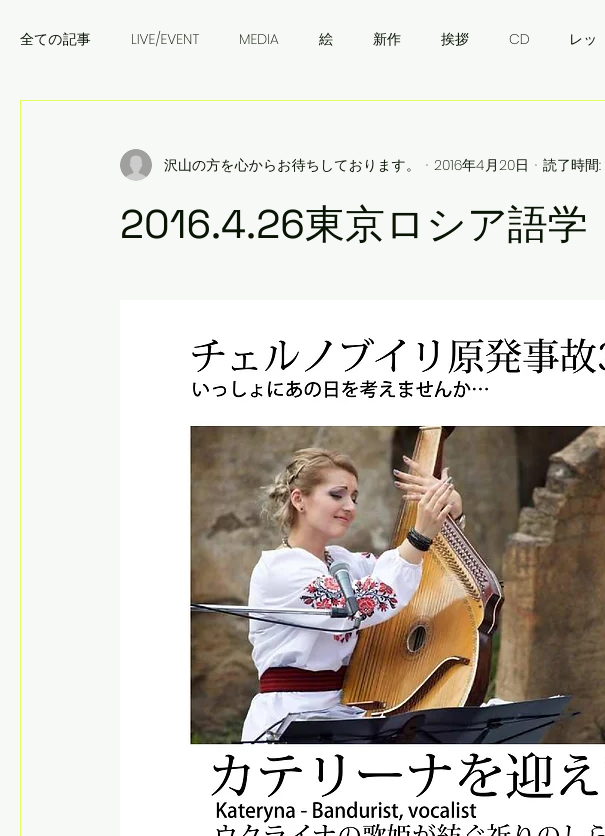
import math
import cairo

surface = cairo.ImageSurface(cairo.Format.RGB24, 605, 836)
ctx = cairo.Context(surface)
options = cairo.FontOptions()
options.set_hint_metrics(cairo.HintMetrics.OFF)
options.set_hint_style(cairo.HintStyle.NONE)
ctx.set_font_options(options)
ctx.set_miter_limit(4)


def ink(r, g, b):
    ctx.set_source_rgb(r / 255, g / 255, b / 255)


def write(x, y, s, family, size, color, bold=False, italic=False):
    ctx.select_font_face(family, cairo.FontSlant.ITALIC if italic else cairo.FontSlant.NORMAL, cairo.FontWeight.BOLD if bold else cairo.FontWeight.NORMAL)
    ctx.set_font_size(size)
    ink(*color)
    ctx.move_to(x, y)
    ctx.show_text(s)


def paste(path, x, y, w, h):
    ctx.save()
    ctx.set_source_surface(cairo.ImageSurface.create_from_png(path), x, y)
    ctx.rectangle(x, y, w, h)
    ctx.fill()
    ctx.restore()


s1 = dict(family="WenQuanYi Zen Hei Medium", size=14, color=(9, 20, 5))
s2 = dict(family="Poppins ExtraLight", size=14, color=(9, 20, 5))
s3 = dict(family="Space Grotesk", size=40, color=(9, 20, 5))
s4 = dict(family="WenQuanYi Zen Hei Medium", size=40, color=(9, 20, 5))

ink(246, 249, 245)
ctx.paint()
write(20, 44, "全ての記事", **s1)
write(131, 44, "LIVE/EVENT", **s2)
write(239, 44, "MEDIA", **s2)
write(319, 44, "絵", **s1)
write(373, 44, "新作", **s1)
write(441, 44, "挨拶", **s1)
write(509, 44, "CD", **s2)
write(569, 44, "レッ", **s1)
ctx.rectangle(20.5, 100.5, 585, 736)
ink(230, 252, 94)
ctx.set_line_width(1)
ctx.stroke()
paste("pic1.png", 120, 149, 32, 32)
write(164, 170, "沢山の方を心からお待ちしております。", **s1)
write(426, 170, "·", **s2)
write(434, 170, "2016", **s2)
write(462, 170, "年", **s1)
write(476, 170, "4", **s2)
write(485, 170, "月", **s1)
write(499, 170, "20", **s2)
write(515, 170, "日", **s1)
write(535, 170, "·", **s2)
write(543, 170, "読了時間", **s1)
write(599, 170, ":", **s2)
write(120, 238, "2016.4.26", **s3)
write(305, 238, "東京ロシア語学", **s4)
paste("pic2.png", 120, 300, 485, 536)
surface.write_to_png("screenshot.png")
